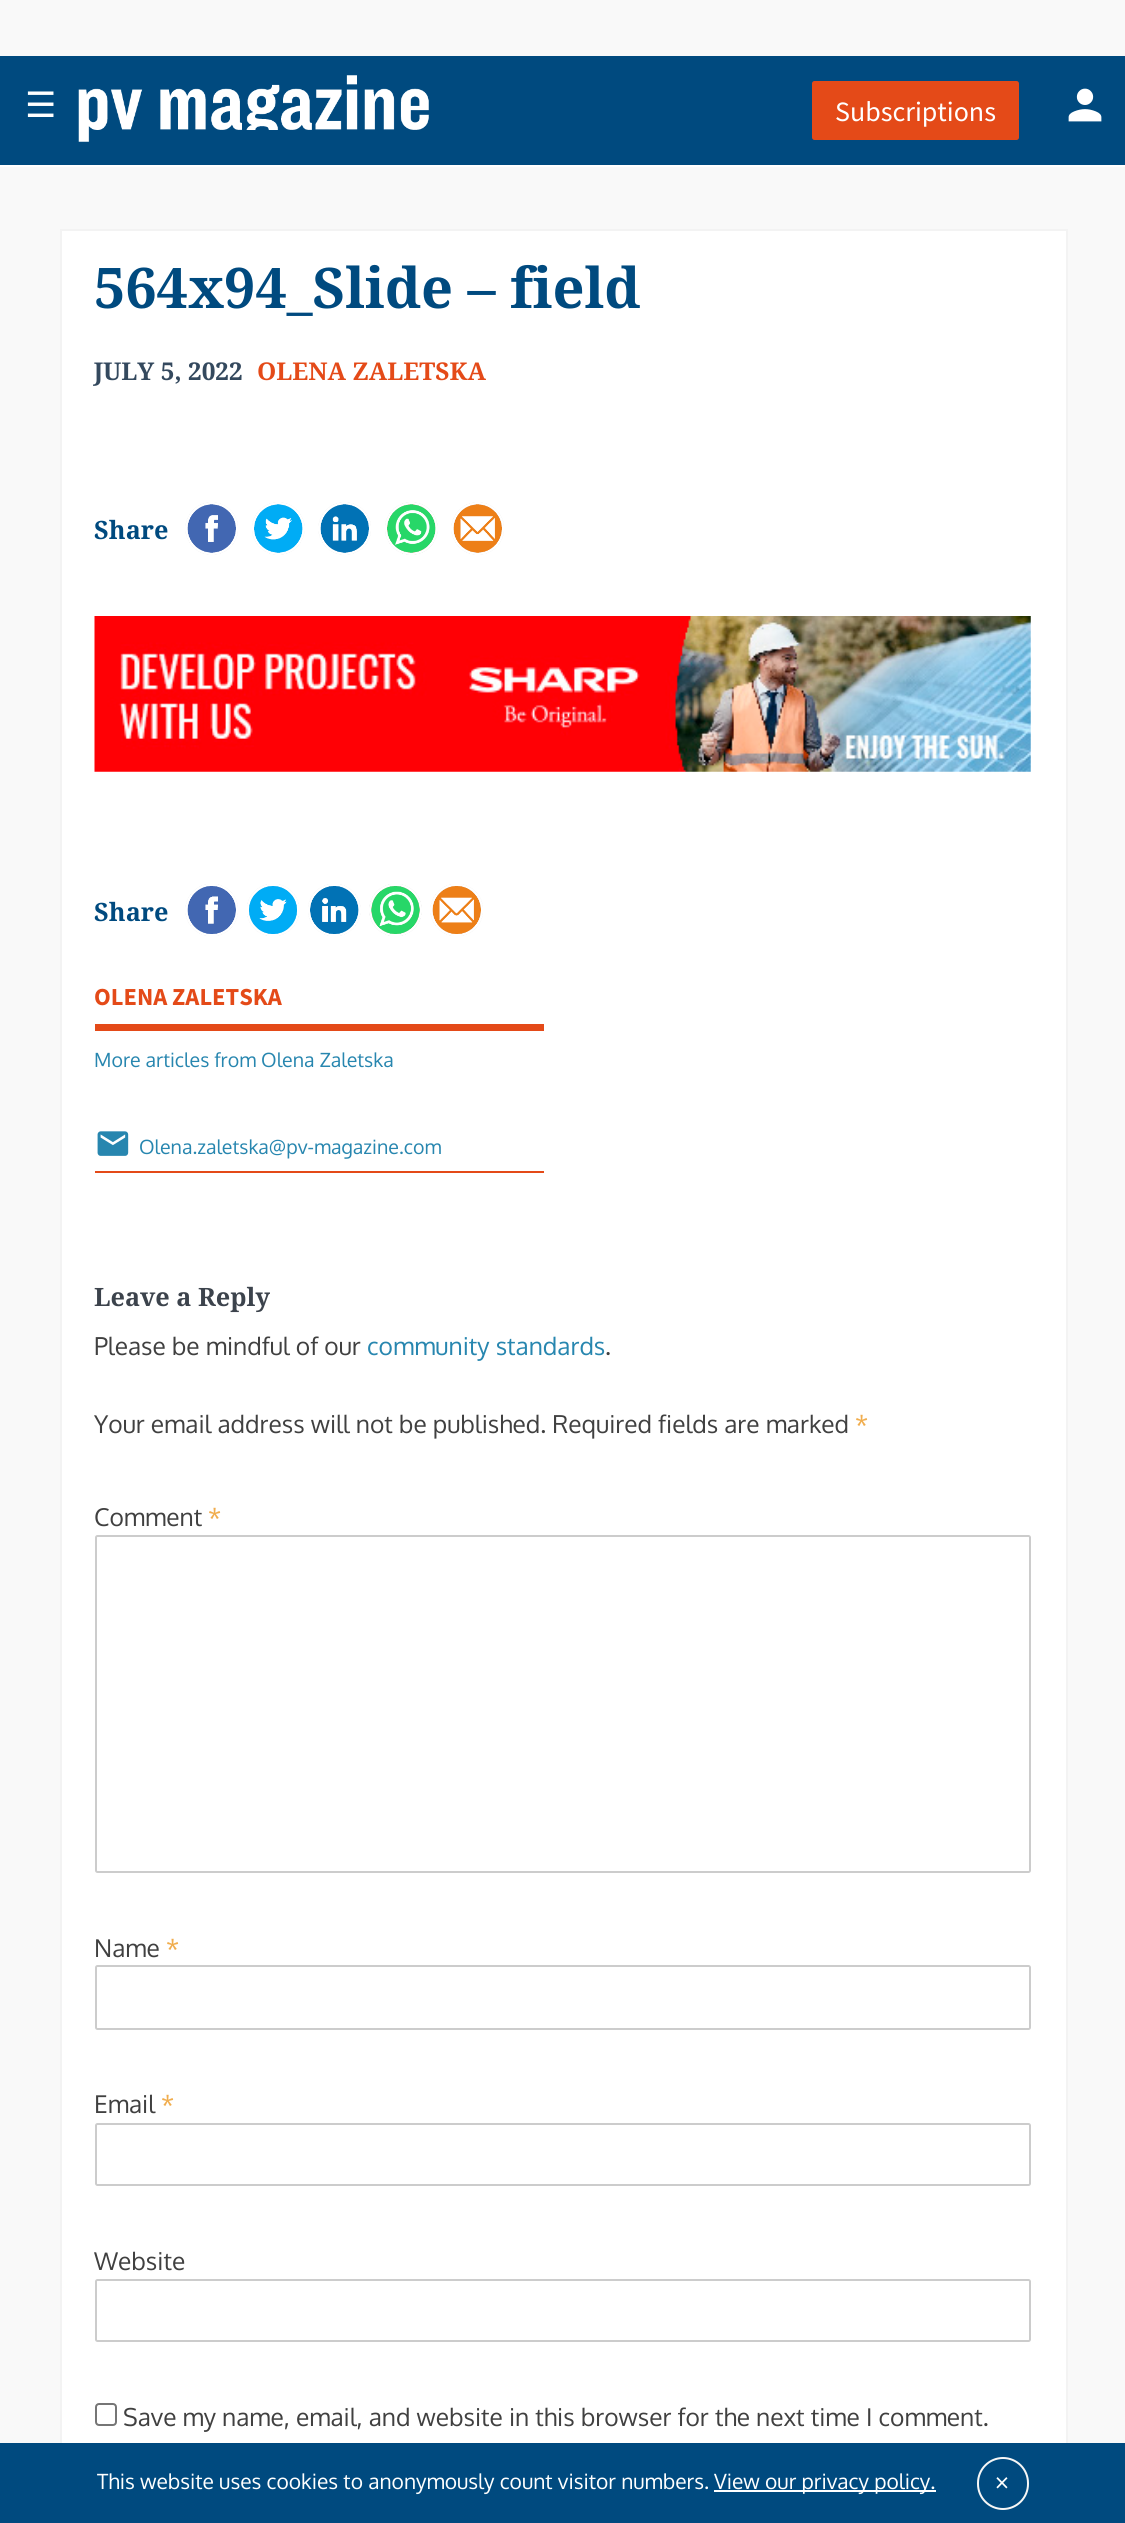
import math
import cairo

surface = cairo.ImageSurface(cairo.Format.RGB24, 1125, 2523)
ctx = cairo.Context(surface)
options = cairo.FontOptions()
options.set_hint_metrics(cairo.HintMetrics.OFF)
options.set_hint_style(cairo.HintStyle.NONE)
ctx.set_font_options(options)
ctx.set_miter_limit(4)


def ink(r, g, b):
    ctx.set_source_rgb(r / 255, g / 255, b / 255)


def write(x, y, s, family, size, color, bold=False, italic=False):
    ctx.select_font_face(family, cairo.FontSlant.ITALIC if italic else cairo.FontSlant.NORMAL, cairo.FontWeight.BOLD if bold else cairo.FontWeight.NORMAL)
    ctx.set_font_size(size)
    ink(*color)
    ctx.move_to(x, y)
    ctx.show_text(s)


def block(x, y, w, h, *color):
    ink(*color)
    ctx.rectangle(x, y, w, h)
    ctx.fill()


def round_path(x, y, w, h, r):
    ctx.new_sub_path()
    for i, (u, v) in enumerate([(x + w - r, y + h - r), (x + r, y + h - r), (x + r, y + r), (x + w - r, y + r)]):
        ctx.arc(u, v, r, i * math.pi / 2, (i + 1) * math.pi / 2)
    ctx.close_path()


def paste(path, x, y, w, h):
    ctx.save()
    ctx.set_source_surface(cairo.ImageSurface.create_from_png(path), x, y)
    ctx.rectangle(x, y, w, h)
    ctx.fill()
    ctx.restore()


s1 = dict(family="DejaVu Sans", size=35, color=(255, 255, 255))
s2 = dict(family="Source Sans Pro", size=28, color=(255, 255, 255))
s3 = dict(family="Droid Serif", size=56, color=(0, 74, 127), bold=True)
s4 = dict(family="Droid Serif", size=24.5, color=(52, 73, 94), bold=True)
s5 = dict(family="Droid Serif", size=24.5, color=(228, 74, 24), bold=True)
s6 = dict(family="Droid Serif", size=25.25, color=(0, 74, 127), bold=True)
s7 = dict(family="Source Sans Pro", size=24.5, color=(228, 74, 24), bold=True)
s8 = dict(family="Oxygen", size=19.6, color=(39, 134, 175))
s9 = dict(family="Droid Serif", size=25.25, color=(60, 67, 76), bold=True)
s10 = dict(family="Oxygen", size=24.5, color=(64, 64, 64))
s11 = dict(family="Oxygen", size=24.5, color=(39, 134, 175))
s12 = dict(family="Oxygen", size=24.5, color=(240, 173, 78))
s13 = dict(family="Oxygen", size=21, color=(255, 255, 255))

ink(249, 249, 249)
ctx.paint()
block(0, 56, 1125, 109, 0, 74, 127)
block(0, 165, 1125, 2, 255, 255, 255)
write(25, 117, "☰", **s1)
paste("pic1.png", 78, 75, 351, 67)
ink(228, 74, 24)
round_path(813, 82, 205, 57, 1.5)
ctx.fill_preserve()
ctx.stroke()
write(835, 121, "Subscriptions", **s2)
paste("pic2.png", 1068, 88, 34, 34)
block(62, 231, 1004, 2212, 255, 255, 255)
ctx.rectangle(61, 230, 1006, 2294)
ink(243, 243, 243)
ctx.stroke()
write(94, 308, "564x94_Slide – field", **s3)
write(94, 380, "JULY 5, 2022", **s4)
write(257, 380, "OLENA ZALETSKA", **s5)
write(94, 539, "Share", **s6)
paste("pic3.png", 185, 502, 53, 53)
paste("pic4.png", 252, 502, 53, 53)
paste("pic5.png", 318, 502, 53, 53)
paste("pic6.png", 385, 502, 53, 53)
paste("pic7.png", 451, 502, 53, 53)
paste("pic8.png", 94, 616, 937, 156)
write(94, 921, "Share", **s6)
paste("pic9.png", 185, 884, 53, 52)
paste("pic10.png", 247, 884, 52, 52)
paste("pic11.png", 308, 884, 53, 52)
paste("pic12.png", 369, 884, 53, 52)
paste("pic13.png", 430, 884, 53, 52)
block(95, 1171, 449, 2, 228, 74, 24)
block(95, 1024, 449, 7, 228, 74, 24)
write(94, 1005, "OLENA ZALETSKA", **s7)
write(94, 1067, "More articles from Olena Zaletska", **s8)
paste("pic14.png", 97, 1131, 32, 25)
ctx.save()
ctx.rectangle(95, 1117, 346, 45)
ctx.clip()
write(139, 1154, "Olena.zaletska@pv-magazine.com", **s8)
ctx.restore()
write(94, 1306, "Leave a Reply", **s9)
write(94, 1355, "Please be mindful of our", **s10)
write(367, 1355, "community standards", **s11)
write(605, 1355, ".", **s10)
write(94, 1433, "Your email address will not be published. Required fields are marked", **s10)
write(855, 1433, "*", **s12)
write(94, 1526, "Comment", **s10)
write(208, 1526, "*", **s12)
round_path(96, 1536, 934, 336, 1.5)
ink(204, 204, 204)
ctx.stroke()
write(94, 1957, "Name", **s10)
write(166, 1957, "*", **s12)
round_path(96, 1966, 934, 63, 1.5)
ink(204, 204, 204)
ctx.stroke()
write(94, 2113, "Email", **s10)
write(161, 2113, "*", **s12)
round_path(96, 2124, 934, 61, 1.5)
ink(204, 204, 204)
ctx.stroke()
write(94, 2270, "Website", **s10)
round_path(96, 2280, 934, 61, 1.5)
ink(204, 204, 204)
ctx.stroke()
round_path(96, 2404, 20, 21, 3)
ink(118, 118, 118)
ctx.stroke()
write(123, 2426, "Save my name, email, and website in this browser for the next time I comment.", **s10)
block(0, 2443, 1125, 80, 0, 74, 127)
write(97, 2489, "This website uses cookies to anonymously count visitor numbers.", **s13)
block(714, 2490, 222, 2, 255, 255, 255)
write(714, 2489, "View our privacy policy.", **s13)
round_path(978, 2458, 50, 51, 25)
ink(246, 246, 246)
ctx.stroke()
write(995, 2492, "×", **s2)
surface.write_to_png("screenshot.png")
